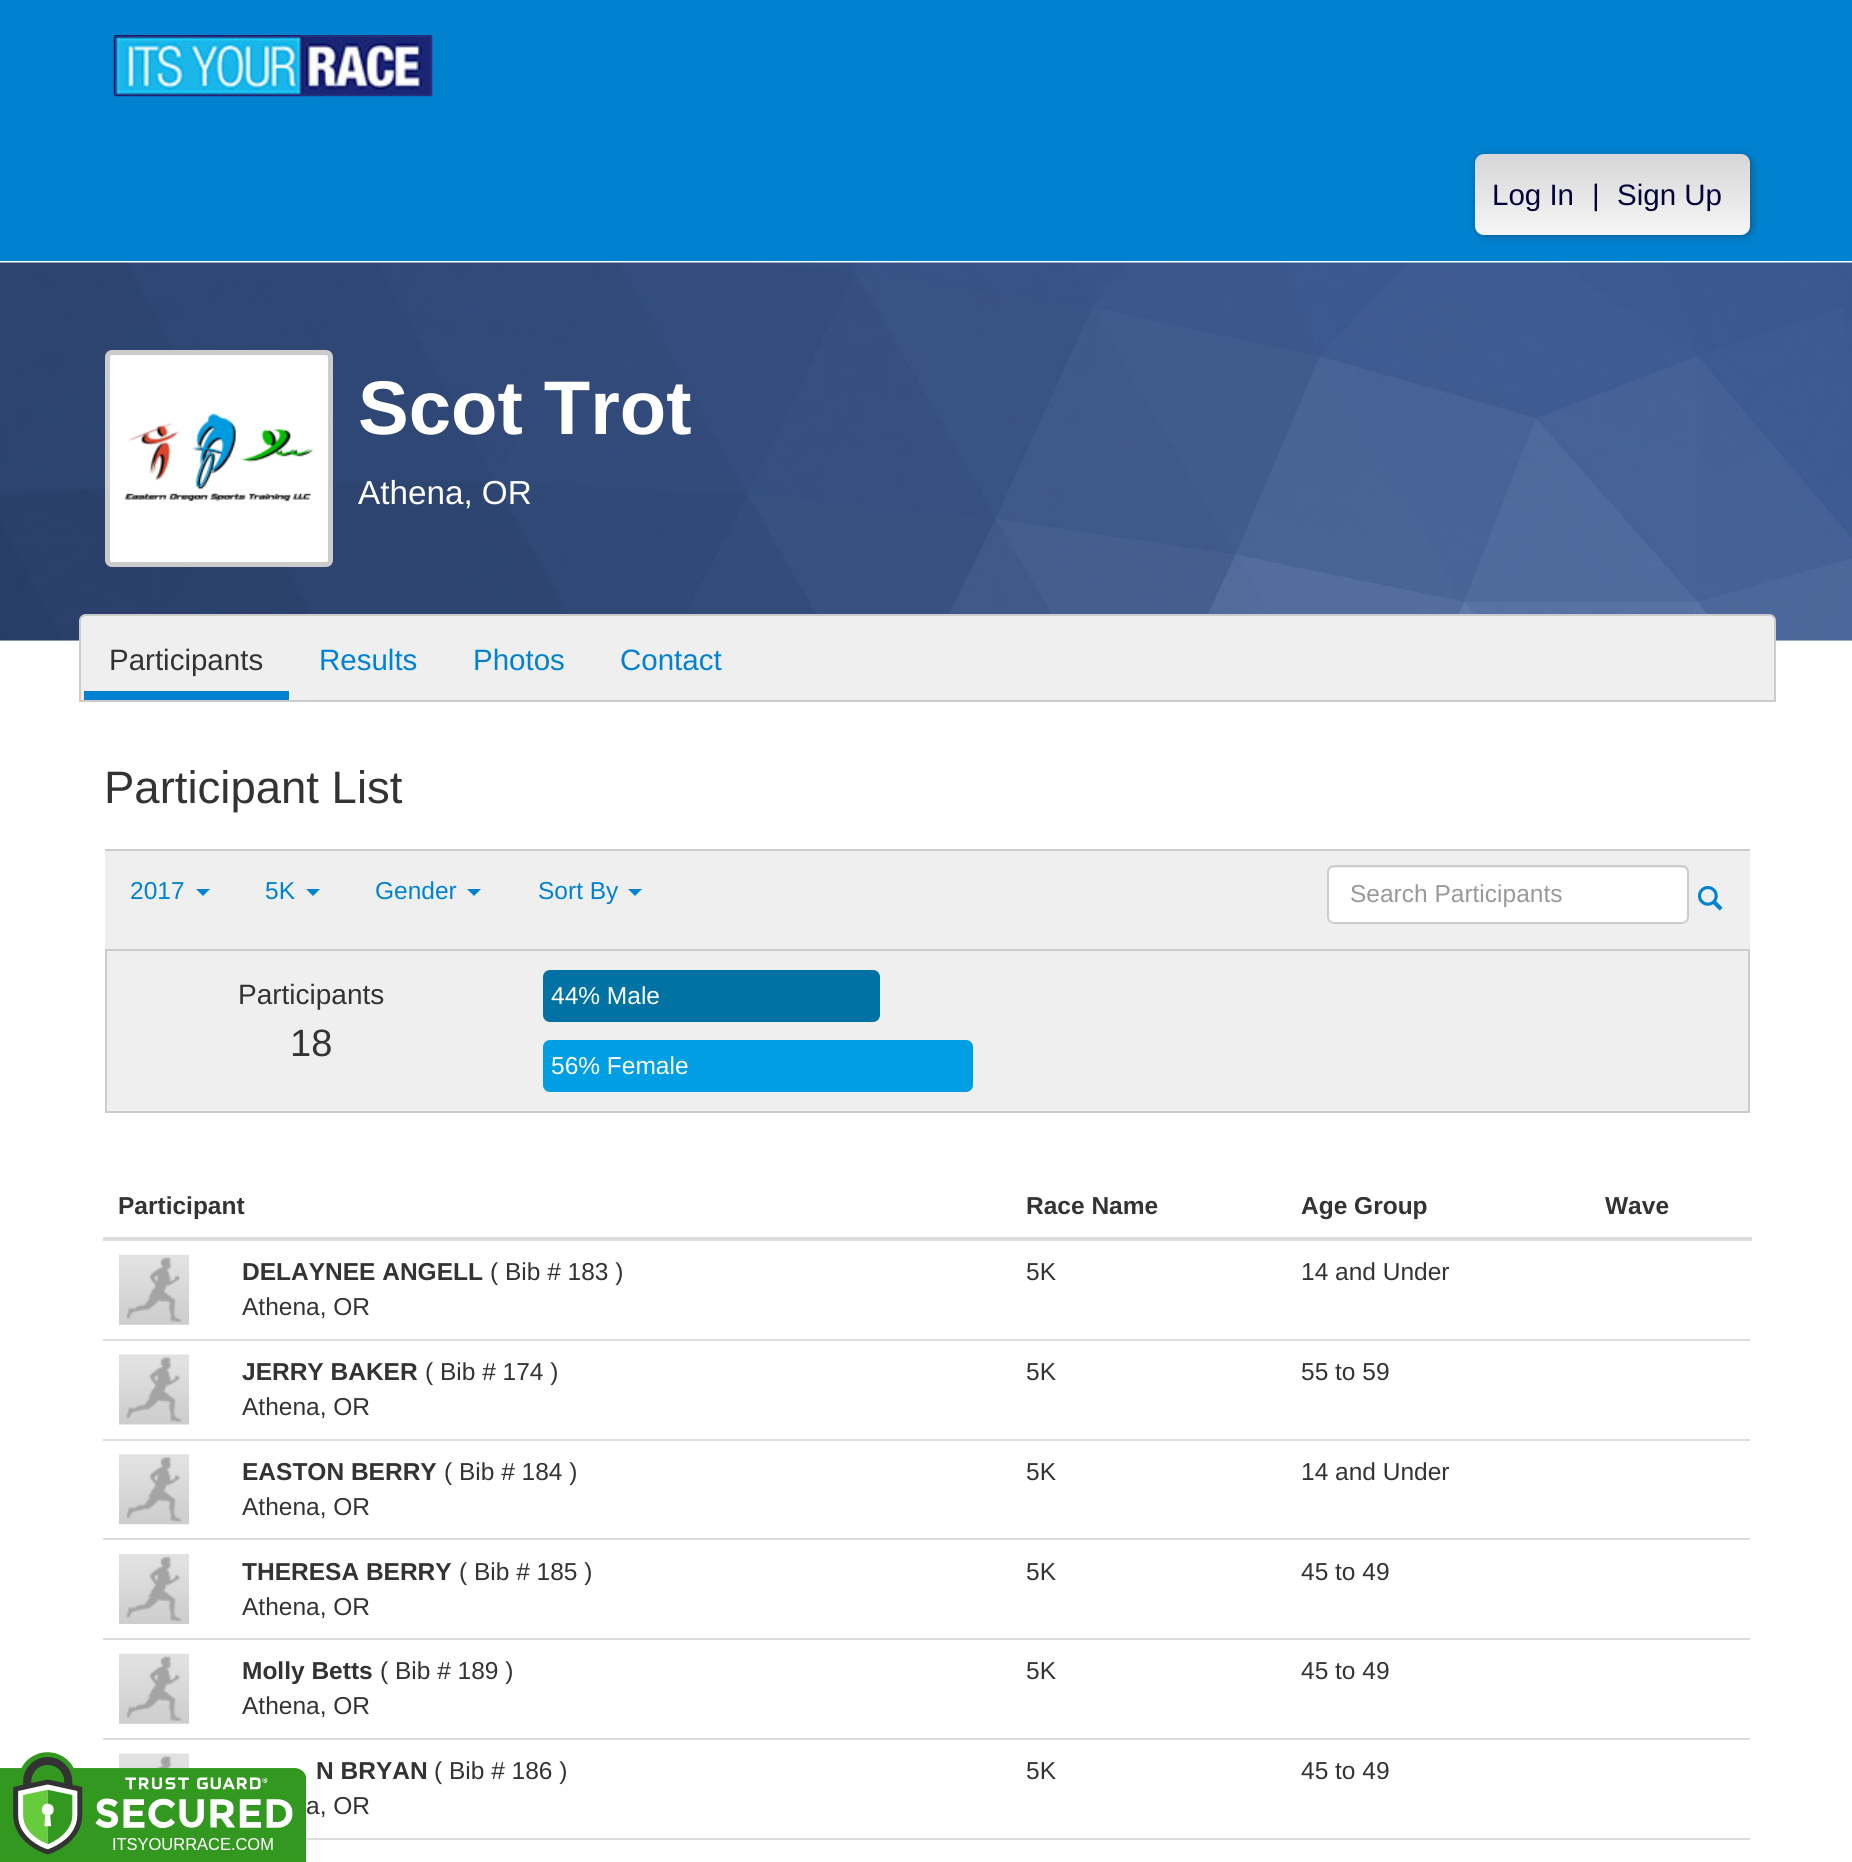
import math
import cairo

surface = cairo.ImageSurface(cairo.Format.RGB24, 1852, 1862)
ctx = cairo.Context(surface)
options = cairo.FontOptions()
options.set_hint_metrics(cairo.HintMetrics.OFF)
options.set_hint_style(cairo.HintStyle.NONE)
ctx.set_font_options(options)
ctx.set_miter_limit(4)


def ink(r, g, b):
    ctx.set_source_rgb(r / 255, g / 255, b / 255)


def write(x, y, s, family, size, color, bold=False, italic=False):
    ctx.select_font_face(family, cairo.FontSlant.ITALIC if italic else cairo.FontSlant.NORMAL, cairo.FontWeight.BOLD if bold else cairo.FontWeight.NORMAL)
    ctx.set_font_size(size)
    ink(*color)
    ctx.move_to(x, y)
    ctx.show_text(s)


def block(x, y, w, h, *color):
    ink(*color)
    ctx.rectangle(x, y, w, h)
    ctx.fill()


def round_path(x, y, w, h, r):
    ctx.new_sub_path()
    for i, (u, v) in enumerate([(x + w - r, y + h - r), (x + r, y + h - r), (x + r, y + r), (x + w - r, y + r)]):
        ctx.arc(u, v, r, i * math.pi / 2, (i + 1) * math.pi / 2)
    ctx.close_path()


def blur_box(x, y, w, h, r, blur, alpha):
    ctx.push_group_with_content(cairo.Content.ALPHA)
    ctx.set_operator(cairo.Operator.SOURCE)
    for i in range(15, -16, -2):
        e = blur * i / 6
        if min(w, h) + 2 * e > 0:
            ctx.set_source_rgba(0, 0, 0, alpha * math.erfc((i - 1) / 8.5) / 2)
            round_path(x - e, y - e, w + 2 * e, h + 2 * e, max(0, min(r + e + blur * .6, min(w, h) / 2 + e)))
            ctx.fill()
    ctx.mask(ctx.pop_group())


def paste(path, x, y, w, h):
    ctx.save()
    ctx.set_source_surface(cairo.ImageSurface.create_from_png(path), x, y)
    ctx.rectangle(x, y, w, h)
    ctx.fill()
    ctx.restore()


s1 = dict(family="Liberation Sans", size=29.5, color=(4, 4, 56))
s2 = dict(family="Liberation Sans", size=76, color=(255, 255, 255), bold=True)
s3 = dict(family="Liberation Sans", size=33.25, color=(255, 255, 255))
s4 = dict(family="Liberation Sans", size=29.5, color=(51, 51, 51))
s5 = dict(family="Liberation Sans", size=29.5, color=(0, 130, 208))
s6 = dict(family="Liberation Sans", size=45.5, color=(51, 51, 51))
s7 = dict(family="Liberation Sans", size=24.5, color=(0, 130, 208))
s8 = dict(family="Liberation Sans", size=24.5, color=(153, 153, 153))
s9 = dict(family="Liberation Sans", size=28, color=(51, 51, 51))
s10 = dict(family="Liberation Sans", size=38, color=(51, 51, 51))
s11 = dict(family="Liberation Sans", size=24.5, color=(255, 255, 255))
s12 = dict(family="Liberation Sans", size=24.5, color=(51, 51, 51), bold=True)
s13 = dict(family="Liberation Sans", size=24.5, color=(51, 51, 51))

ink(255, 255, 255)
ctx.paint()
block(0, 0, 1852, 261, 0, 130, 208)
paste("pic1.png", 113, 35, 320, 62)
ink(0, 0, 0)
blur_box(1477, 156, 275, 80, 9, 4.5, 0.3)
gradient = cairo.LinearGradient(1613, 154, 1613, 235)
gradient.add_color_stop_rgba(0, 0.839, 0.839, 0.839, 1)
gradient.add_color_stop_rgba(1, 0.965, 0.965, 0.965, 1)
ctx.set_source(gradient)
round_path(1475, 154, 275, 81, 9)
ctx.fill()
write(1492, 205, "Log In", **s1)
write(1592, 205, "|", **s1)
write(1617, 205, "Sign Up", **s1)
block(0, 640, 1852, 1, 238, 238, 238)
paste("pic2.png", 0, 262, 1852, 379)
ink(255, 255, 255)
round_path(107.5, 352.5, 223, 212, 4.5)
ctx.fill_preserve()
ink(204, 204, 204)
ctx.set_line_width(5)
ctx.stroke()
paste("pic3.png", 124, 413, 190, 89)
write(358, 434, "Scot Trot", **s2)
write(358, 504, "Athena, OR", **s3)
ink(239, 239, 239)
ctx.new_path()
ctx.move_to(86, 615)
ctx.line_to(1769, 615)
ctx.curve_to(1772.5, 615, 1775, 617.5, 1775, 621)
ctx.line_to(1775, 701)
ctx.line_to(80, 701)
ctx.line_to(80, 621)
ctx.curve_to(80, 617.5, 82.5, 615, 86, 615)
ctx.close_path()
ctx.fill_preserve()
ink(204, 204, 204)
ctx.set_line_width(2)
ctx.stroke()
block(84, 691, 205, 9, 0, 130, 208)
write(109, 670, "Participants", **s4)
write(319, 670, "Results", **s5)
write(473, 670, "Photos", **s5)
write(620, 670, "Contact", **s5)
write(104, 803, "Participant List", **s6)
block(105, 851, 1645, 98, 239, 239, 239)
block(105, 849, 1645, 2, 204, 204, 204)
write(130, 899, "2017", **s7)
ctx.new_path()
ctx.move_to(196, 889)
ctx.line_to(210, 889)
ctx.line_to(203, 896)
ctx.close_path()
ctx.fill()
write(265, 899, "5K", **s7)
ctx.new_path()
ctx.move_to(306, 889)
ctx.line_to(320, 889)
ctx.line_to(313, 896)
ctx.close_path()
ctx.fill()
write(375, 899, "Gender", **s7)
ctx.new_path()
ctx.move_to(467, 889)
ctx.line_to(481, 889)
ctx.line_to(474, 896)
ctx.close_path()
ctx.fill()
write(538, 899, "Sort By", **s7)
ctx.new_path()
ctx.move_to(628, 889)
ctx.line_to(642, 889)
ctx.line_to(635, 896)
ctx.close_path()
ctx.fill()
ink(255, 255, 255)
round_path(1327, 865, 362, 59, 7)
ctx.fill()
ink(236, 236, 236)
ctx.new_path()
ctx.move_to(1334, 868)
ctx.line_to(1682, 868)
ctx.curve_to(1685, 868, 1687, 870, 1687, 873)
ctx.curve_to(1687, 870, 1686, 866, 1682, 866)
ctx.line_to(1333, 866)
ctx.curve_to(1329, 866, 1328, 870, 1328, 873)
ctx.curve_to(1328, 870, 1331, 868, 1334, 868)
ctx.close_path()
ctx.fill()
round_path(1328, 866, 360, 57, 6)
ink(204, 204, 204)
ctx.stroke()
write(1350, 902, "Search Participants", **s8)
paste("pic4.png", 1698, 886, 25, 25)
ink(239, 239, 239)
ctx.rectangle(106, 950, 1643, 162)
ctx.fill_preserve()
ink(204, 204, 204)
ctx.stroke()
write(238, 1004, "Participants", **s9)
write(290, 1056, "18", **s10)
ink(0, 114, 163)
round_path(543, 970, 337, 52, 7)
ctx.fill()
write(551, 1004, "44% Male", **s11)
ink(0, 158, 227)
round_path(543, 1040, 430, 52, 7)
ctx.fill()
write(551, 1074, "56% Female", **s11)
write(118, 1214, "Participant", **s12)
write(1026, 1214, "Race Name", **s12)
write(1301, 1214, "Age Group", **s12)
block(103, 1237, 1649, 4, 221, 221, 221)
write(1605, 1214, "Wave", **s12)
paste("pic5.png", 119, 1254, 70, 71)
write(242, 1280, "DELAYNEE ANGELL", **s12)
write(490, 1280, "( Bib # 183 )", **s13)
write(242, 1315, "Athena, OR", **s13)
write(1026, 1280, "5K", **s13)
write(1301, 1280, "14 and Under", **s13)
block(103, 1339, 1647, 2, 221, 221, 221)
paste("pic6.png", 119, 1354, 70, 71)
write(242, 1380, "JERRY BAKER", **s12)
write(425, 1380, "( Bib # 174 )", **s13)
write(242, 1415, "Athena, OR", **s13)
write(1026, 1380, "5K", **s13)
write(1301, 1380, "55 to 59", **s13)
block(103, 1439, 1647, 2, 221, 221, 221)
paste("pic7.png", 119, 1454, 70, 71)
write(242, 1480, "EASTON BERRY", **s12)
write(444, 1480, "( Bib # 184 )", **s13)
write(242, 1515, "Athena, OR", **s13)
write(1026, 1480, "5K", **s13)
write(1301, 1480, "14 and Under", **s13)
block(103, 1538, 1647, 2, 221, 221, 221)
paste("pic8.png", 119, 1554, 70, 70)
write(242, 1580, "THERESA BERRY", **s12)
write(459, 1580, "( Bib # 185 )", **s13)
write(242, 1615, "Athena, OR", **s13)
write(1026, 1580, "5K", **s13)
write(1301, 1580, "45 to 49", **s13)
block(103, 1638, 1647, 2, 221, 221, 221)
paste("pic5.png", 119, 1653, 70, 71)
write(242, 1679, "Molly Betts", **s12)
write(380, 1679, "( Bib # 189 )", **s13)
write(242, 1714, "Athena, OR", **s13)
write(1026, 1679, "5K", **s13)
write(1301, 1679, "45 to 49", **s13)
block(103, 1738, 1647, 2, 221, 221, 221)
paste("pic9.png", 119, 1753, 70, 16)
write(316, 1779, "N BRYAN", **s12)
write(434, 1779, "( Bib # 186 )", **s13)
write(306, 1814, "a, OR", **s13)
write(1026, 1779, "5K", **s13)
write(1301, 1779, "45 to 49", **s13)
block(306, 1838, 1444, 2, 221, 221, 221)
paste("pic10.png", 0, 1752, 306, 110)
surface.write_to_png("screenshot.png")
